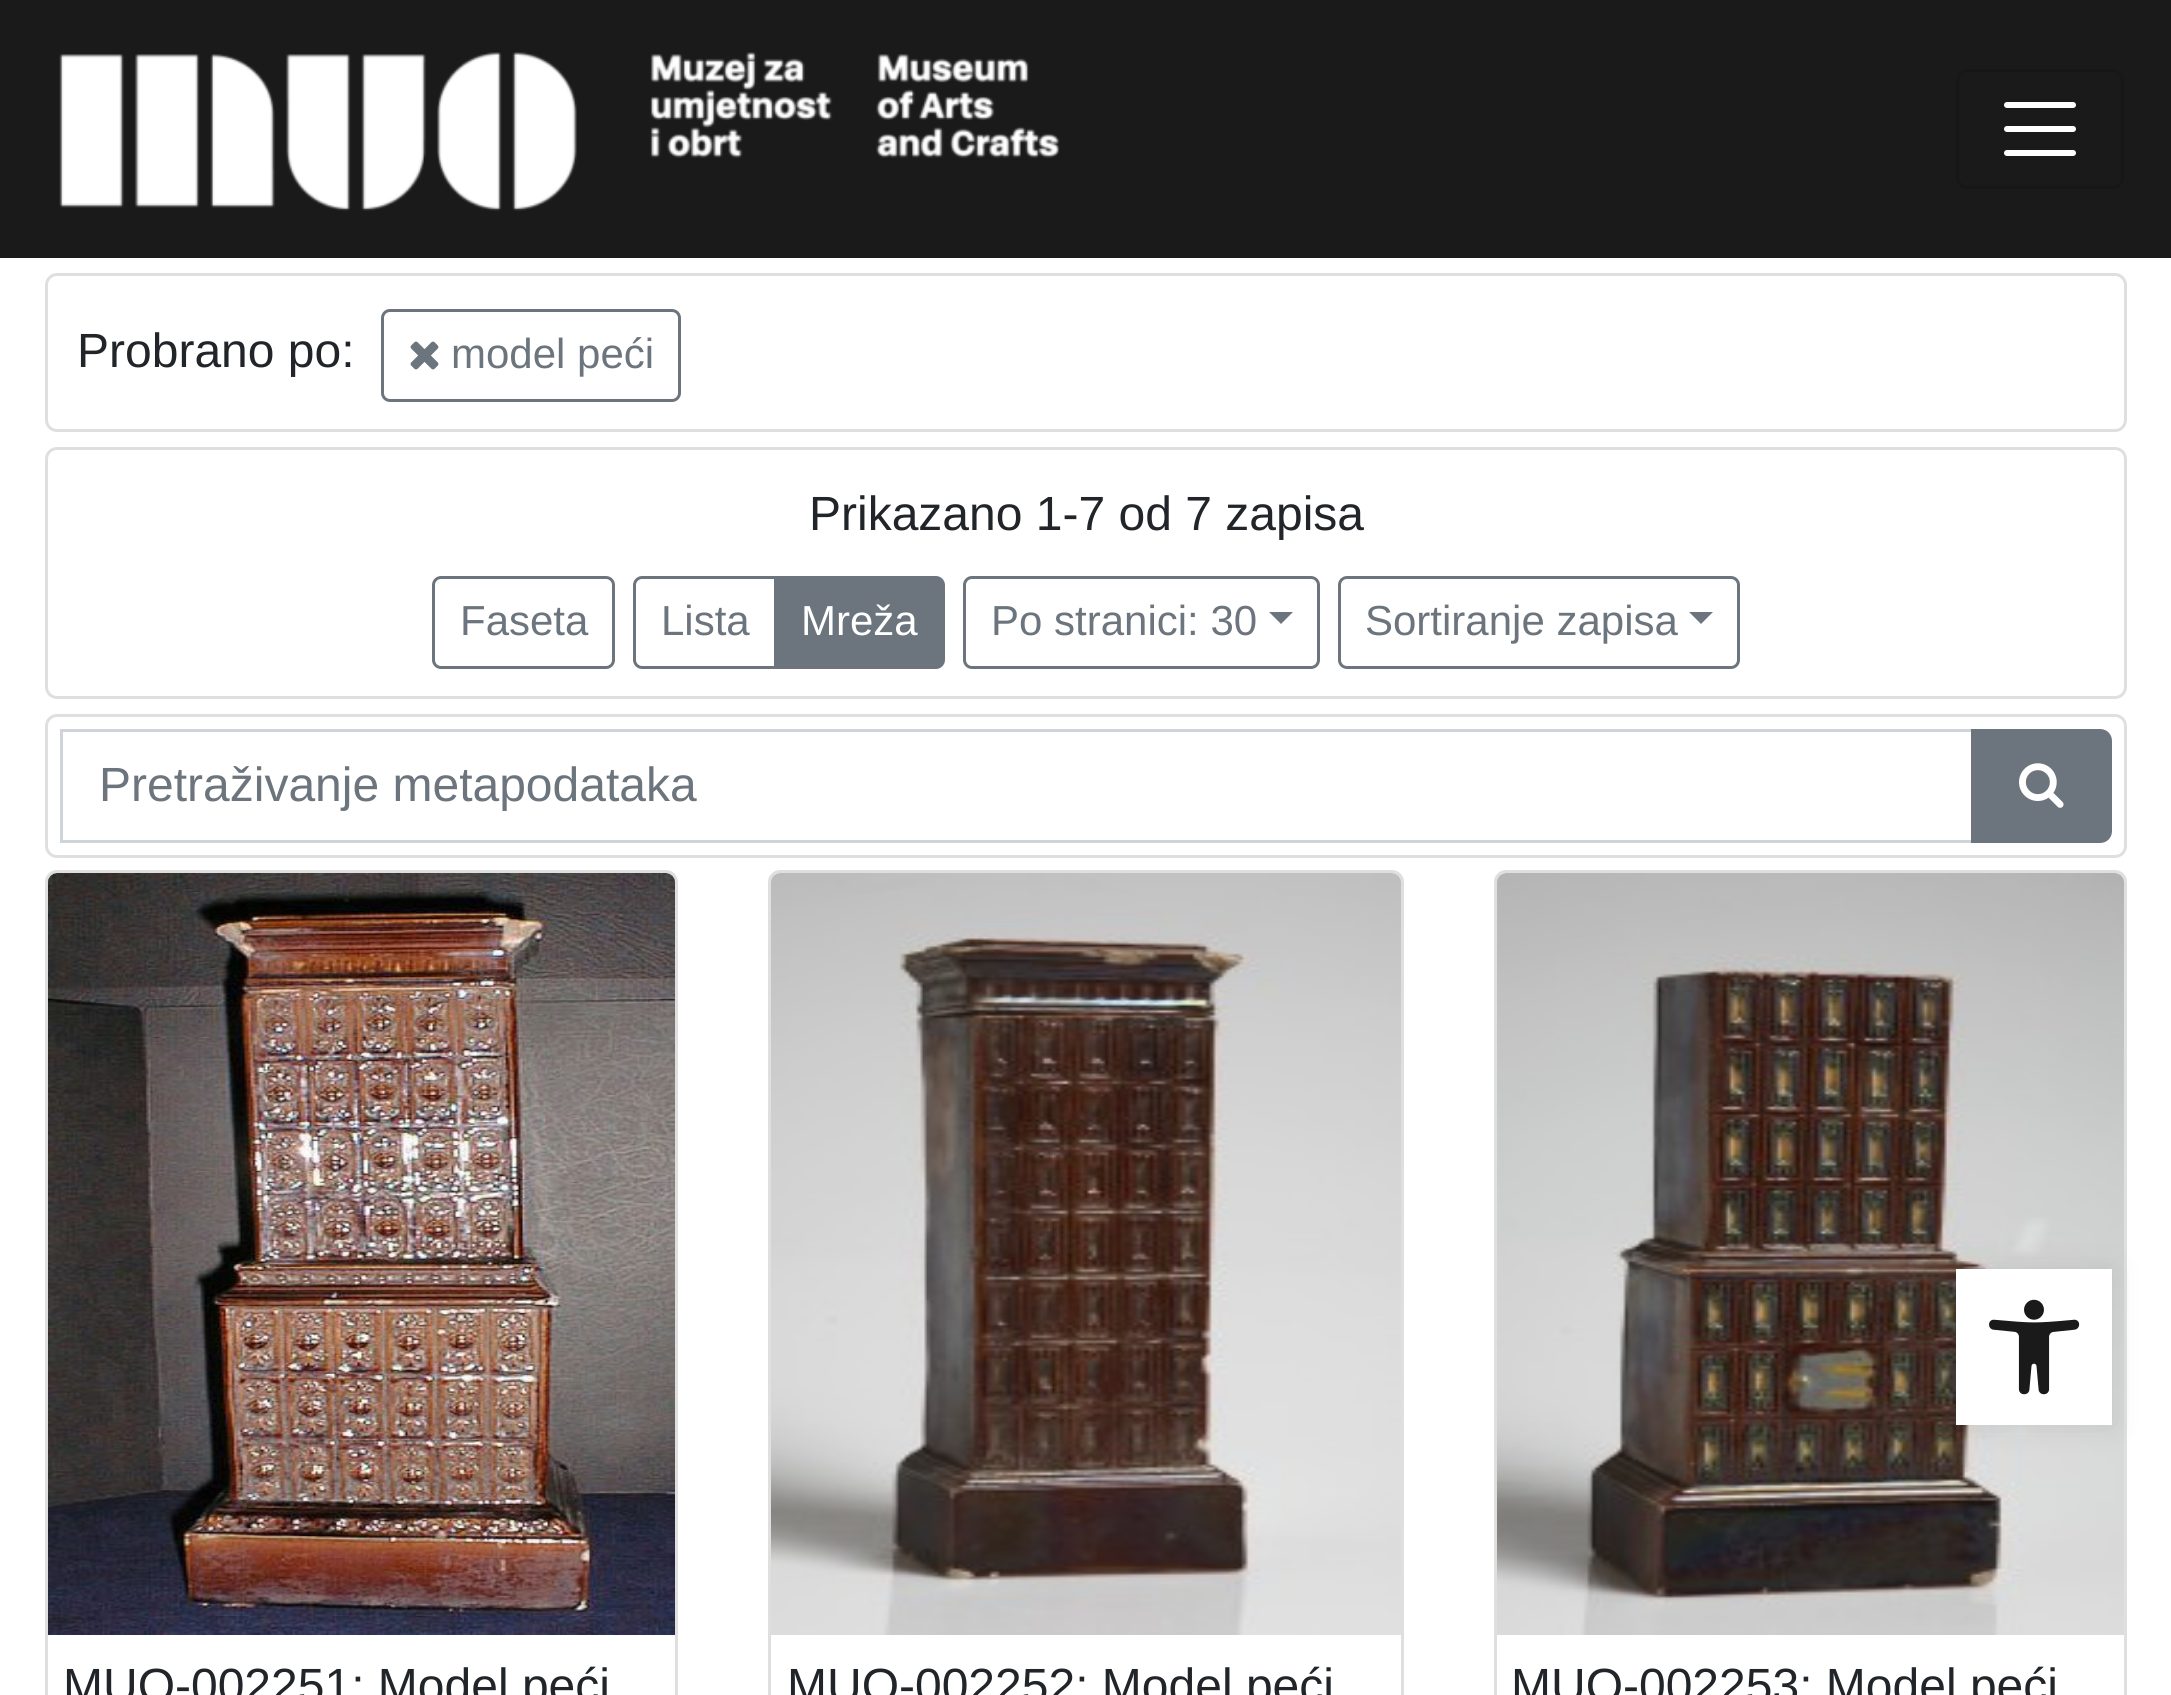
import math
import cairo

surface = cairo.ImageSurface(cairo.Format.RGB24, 2171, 1695)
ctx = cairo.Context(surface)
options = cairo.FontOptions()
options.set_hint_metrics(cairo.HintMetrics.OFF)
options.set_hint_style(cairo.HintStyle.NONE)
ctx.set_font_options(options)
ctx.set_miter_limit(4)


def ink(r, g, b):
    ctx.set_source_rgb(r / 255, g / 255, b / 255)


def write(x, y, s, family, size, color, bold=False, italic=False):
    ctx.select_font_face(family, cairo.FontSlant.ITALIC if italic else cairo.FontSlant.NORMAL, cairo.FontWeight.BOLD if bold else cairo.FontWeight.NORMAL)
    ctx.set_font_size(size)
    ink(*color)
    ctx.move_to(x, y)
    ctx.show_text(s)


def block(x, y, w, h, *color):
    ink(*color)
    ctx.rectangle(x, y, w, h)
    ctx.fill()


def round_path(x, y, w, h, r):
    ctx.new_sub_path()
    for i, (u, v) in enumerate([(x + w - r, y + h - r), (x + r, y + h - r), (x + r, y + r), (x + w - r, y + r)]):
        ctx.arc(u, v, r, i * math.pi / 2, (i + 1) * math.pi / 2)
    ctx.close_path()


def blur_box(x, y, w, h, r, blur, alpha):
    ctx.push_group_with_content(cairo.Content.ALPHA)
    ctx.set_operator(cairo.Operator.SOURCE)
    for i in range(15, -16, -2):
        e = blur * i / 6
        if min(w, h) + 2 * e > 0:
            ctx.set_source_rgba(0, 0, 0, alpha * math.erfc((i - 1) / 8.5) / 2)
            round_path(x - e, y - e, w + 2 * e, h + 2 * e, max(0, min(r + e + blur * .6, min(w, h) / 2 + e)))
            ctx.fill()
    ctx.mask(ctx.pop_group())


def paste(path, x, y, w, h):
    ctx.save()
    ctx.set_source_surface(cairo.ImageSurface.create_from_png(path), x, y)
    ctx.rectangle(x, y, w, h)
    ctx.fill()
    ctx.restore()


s1 = dict(family="Liberation Sans", size=48, color=(33, 37, 41))
s2 = dict(family="Liberation Sans", size=42, color=(108, 117, 125))
s3 = dict(family="Liberation Sans", size=42, color=(255, 255, 255))
s4 = dict(family="Liberation Sans", size=48, color=(108, 117, 125))

ink(255, 255, 255)
ctx.paint()
block(0, 0, 2171, 258, 26, 26, 26)
paste("pic1.png", 59, 52, 1001, 159)
round_path(1957.5, 70.5, 165, 117, 10.5)
ink(23, 23, 23)
ctx.set_line_width(3)
ctx.stroke()
ctx.new_path()
ctx.move_to(2007, 105)
ctx.line_to(2073, 105)
ctx.move_to(2007, 129)
ctx.line_to(2073, 129)
ctx.move_to(2007, 153)
ctx.line_to(2073, 153)
ink(255, 255, 255)
ctx.set_line_width(6)
ctx.set_line_cap(cairo.LineCap.ROUND)
ctx.stroke()
round_path(46.5, 274.5, 2079, 156, 10.5)
ink(223, 223, 223)
ctx.set_line_width(3)
ctx.set_line_cap(cairo.LineCap.BUTT)
ctx.stroke()
write(77, 367, "Probrano po:", **s1)
round_path(382.5, 310.5, 297, 90, 7.5)
ink(108, 117, 125)
ctx.stroke()
paste("pic2.png", 410, 341, 29, 29)
write(451, 368, "model peći", **s2)
round_path(46.5, 448.5, 2079, 249, 10.5)
ink(223, 223, 223)
ctx.stroke()
write(809, 530, "Prikazano 1-7 od 7 zapisa", **s1)
round_path(433.5, 577.5, 180, 90, 7.5)
ink(108, 117, 125)
ctx.stroke()
write(460, 635, "Faseta", **s2)
ctx.new_path()
ctx.move_to(642, 577.5)
ctx.line_to(775.5, 577.5)
ctx.line_to(775.5, 667.5)
ctx.line_to(642, 667.5)
ctx.curve_to(638, 667.5, 634.5, 664, 634.5, 660)
ctx.line_to(634.5, 585)
ctx.curve_to(634.5, 581, 638, 577.5, 642, 577.5)
ctx.close_path()
ctx.stroke()
write(661, 635, "Lista", **s2)
ctx.new_path()
ctx.move_to(775.5, 577.5)
ctx.line_to(936, 577.5)
ctx.curve_to(940, 577.5, 943.5, 581, 943.5, 585)
ctx.line_to(943.5, 660)
ctx.curve_to(943.5, 664, 940, 667.5, 936, 667.5)
ctx.line_to(775.5, 667.5)
ctx.close_path()
ctx.fill_preserve()
ctx.stroke()
write(801, 635, "Mreža", **s3)
round_path(964.5, 577.5, 354, 90, 7.5)
ink(108, 117, 125)
ctx.stroke()
write(991, 635, "Po stranici: 30", **s2)
ctx.new_path()
ctx.move_to(1269, 612)
ctx.line_to(1293, 612)
ctx.line_to(1281, 624)
ctx.close_path()
ctx.fill()
round_path(1339.5, 577.5, 399, 90, 7.5)
ctx.stroke()
write(1365, 635, "Sortiranje zapisa", **s2)
ctx.new_path()
ctx.move_to(1689, 612)
ctx.line_to(1713, 612)
ctx.line_to(1701, 624)
ctx.close_path()
ctx.fill()
round_path(46.5, 715.5, 2079, 141, 10.5)
ink(223, 223, 223)
ctx.stroke()
ctx.rectangle(61.5, 730.5, 1911, 111)
ink(206, 212, 218)
ctx.stroke()
write(99, 801, "Pretraživanje metapodataka", **s4)
ctx.new_path()
ctx.move_to(1972.5, 730.5)
ctx.line_to(2100, 730.5)
ctx.curve_to(2106, 730.5, 2110.5, 735, 2110.5, 741)
ctx.line_to(2110.5, 831)
ctx.curve_to(2110.5, 837, 2106, 841.5, 2100, 841.5)
ctx.line_to(1972.5, 841.5)
ctx.close_path()
ctx.fill_preserve()
ctx.stroke()
paste("pic3.png", 2019, 763, 45, 45)
round_path(46.5, 871.5, 630, 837, 10.5)
ink(223, 223, 223)
ctx.stroke()
paste("pic4.png", 48, 873, 627, 762)
write(63, 1702, "MUO-002251: Model peći", **s1)
round_path(769.5, 871.5, 633, 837, 10.5)
ink(223, 223, 223)
ctx.stroke()
paste("pic5.png", 771, 873, 630, 762)
write(787, 1702, "MUO-002252: Model peći", **s1)
round_path(1495.5, 871.5, 630, 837, 10.5)
ink(223, 223, 223)
ctx.stroke()
paste("pic6.png", 1497, 873, 627, 762)
write(1511, 1702, "MUO-002253: Model peći", **s1)
ink(0, 0, 0)
blur_box(1956, 1269, 156, 156, 0, 15, 0.1)
block(1956, 1269, 156, 156, 255, 255, 255)
paste("pic7.png", 1989, 1299, 91, 96)
surface.write_to_png("screenshot.png")
